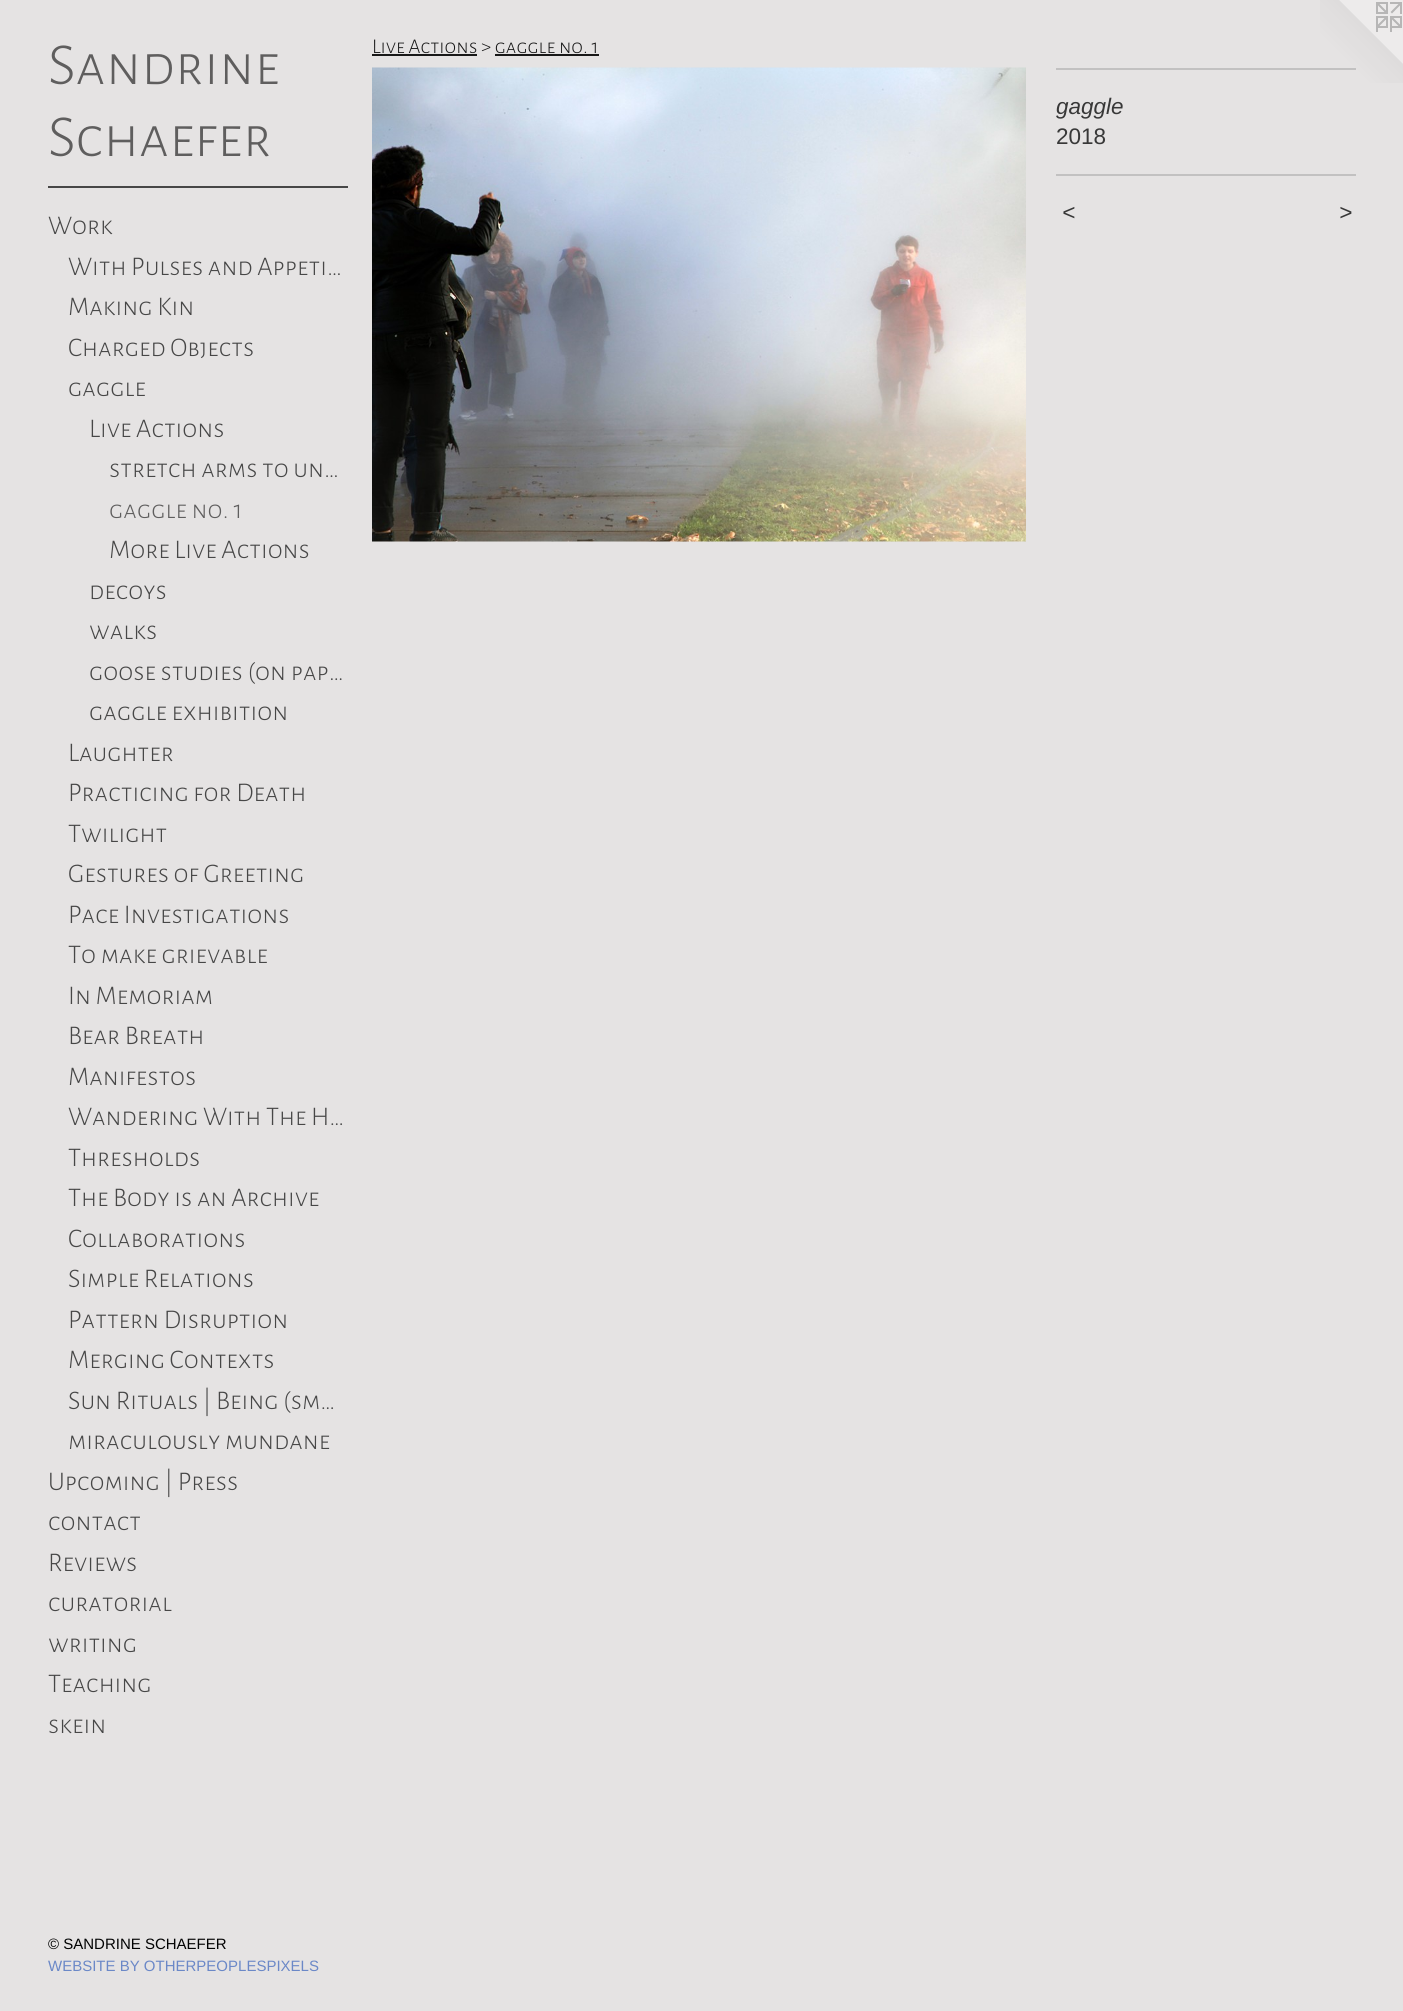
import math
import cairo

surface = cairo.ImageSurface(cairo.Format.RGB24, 1403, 2011)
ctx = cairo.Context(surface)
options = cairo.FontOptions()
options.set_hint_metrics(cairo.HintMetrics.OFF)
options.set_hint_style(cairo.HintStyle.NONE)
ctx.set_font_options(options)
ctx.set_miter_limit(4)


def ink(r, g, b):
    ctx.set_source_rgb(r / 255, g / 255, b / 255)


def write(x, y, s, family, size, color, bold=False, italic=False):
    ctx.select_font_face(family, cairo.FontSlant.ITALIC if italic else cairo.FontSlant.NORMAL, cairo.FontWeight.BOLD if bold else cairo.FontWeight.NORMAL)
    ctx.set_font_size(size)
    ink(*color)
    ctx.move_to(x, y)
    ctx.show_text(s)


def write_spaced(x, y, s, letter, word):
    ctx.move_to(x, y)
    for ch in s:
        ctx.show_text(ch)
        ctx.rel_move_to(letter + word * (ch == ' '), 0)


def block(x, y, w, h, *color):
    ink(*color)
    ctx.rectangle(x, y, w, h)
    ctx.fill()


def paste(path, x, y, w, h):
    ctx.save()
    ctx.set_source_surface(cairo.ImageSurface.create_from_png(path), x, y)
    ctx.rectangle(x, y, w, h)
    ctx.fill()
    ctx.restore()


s1 = dict(family="Alegreya Sans SC Light", size=60, color=(95, 94, 94))
s2 = dict(family="Alegreya Sans SC Light", size=27, color=(71, 71, 71))
s3 = dict(family="Alegreya Sans SC Light", size=27, color=(95, 94, 94))
s4 = dict(family="Liberation Sans", size=15, color=(2, 3, 3))
s5 = dict(family="Liberation Sans", size=15, color=(107, 136, 199))
s6 = dict(family="Alegreya Sans SC Light", size=21, color=(24, 24, 24))
s7 = dict(family="Liberation Sans", size=22.5, color=(56, 56, 56), italic=True)
s8 = dict(family="Liberation Sans", size=22.5, color=(56, 56, 56))

ink(229, 227, 227)
ctx.paint()
write(48, 84, "Sandrine", **s1)
write(48, 156, "Schaefer", **s1)
block(48, 186, 300, 2, 71, 71, 71)
write(48, 234, "Work", **s2)
write(68, 275, "With Pulses and Appeti…", **s2)
write(68, 315, "Making Kin", **s2)
write(68, 356, "Charged Objects", **s2)
write(68, 396, "gaggle", **s2)
write(89, 437, "Live Actions", **s2)
write(109, 477, "stretch arms to un…", **s2)
write(109, 518, "gaggle no. 1", **s3)
write(109, 558, "More Live Actions", **s2)
write(89, 599, "decoys", **s2)
write(89, 639, "walks", **s2)
write(89, 680, "goose studies (on pap…", **s2)
write(89, 720, "gaggle exhibition", **s2)
write(68, 761, "Laughter", **s2)
write(68, 801, "Practicing for Death", **s2)
write(68, 842, "Twilight", **s2)
write(68, 882, "Gestures of Greeting", **s2)
write(68, 923, "Pace Investigations", **s2)
write(68, 963, "To make grievable", **s2)
write(68, 1004, "In Memoriam", **s2)
write(68, 1044, "Bear Breath", **s2)
write(68, 1085, "Manifestos", **s2)
write(68, 1125, "Wandering With The H…", **s2)
write(68, 1166, "Thresholds", **s2)
write(68, 1206, "The Body is an Archive", **s2)
write(68, 1247, "Collaborations", **s2)
write(68, 1287, "Simple Relations", **s2)
write(68, 1328, "Pattern Disruption", **s2)
write(68, 1368, "Merging Contexts", **s2)
write(68, 1409, "Sun Rituals | Being (sm…", **s2)
write(68, 1449, "miraculously mundane", **s2)
write(48, 1490, "Upcoming | Press", **s2)
write(48, 1530, "contact", **s2)
write(48, 1571, "Reviews", **s2)
write(48, 1611, "curatorial", **s2)
write(48, 1652, "writing", **s2)
write(48, 1692, "Teaching", **s2)
write(48, 1733, "skein", **s2)
write(48, 1949, "© SANDRINE SCHAEFER", **s4)
write(48, 1971, "WEBSITE BY OTHERPEOPLESPIXELS", **s5)
write(372, 53, "Live Actions > gaggle no. 1", **s6)
block(372, 54, 105, 2, 24, 24, 24)
block(495, 54, 104, 2, 24, 24, 24)
paste("pic1.png", 372, 67, 654, 475)
paste("pic2.png", 1320, 0, 83, 83)
block(1056, 68, 300, 2, 194, 193, 193)
write(1056, 114, "gaggle", **s7)
write(1056, 144, "2018", **s8)
block(1056, 174, 300, 2, 194, 193, 193)
ctx.select_font_face("Liberation Sans", cairo.FontSlant.ITALIC)
ink(56, 56, 56)
write_spaced(1062, 220, "<", 2, 0)
write_spaced(1339, 220, ">", 2, 0)
surface.write_to_png("screenshot.png")
